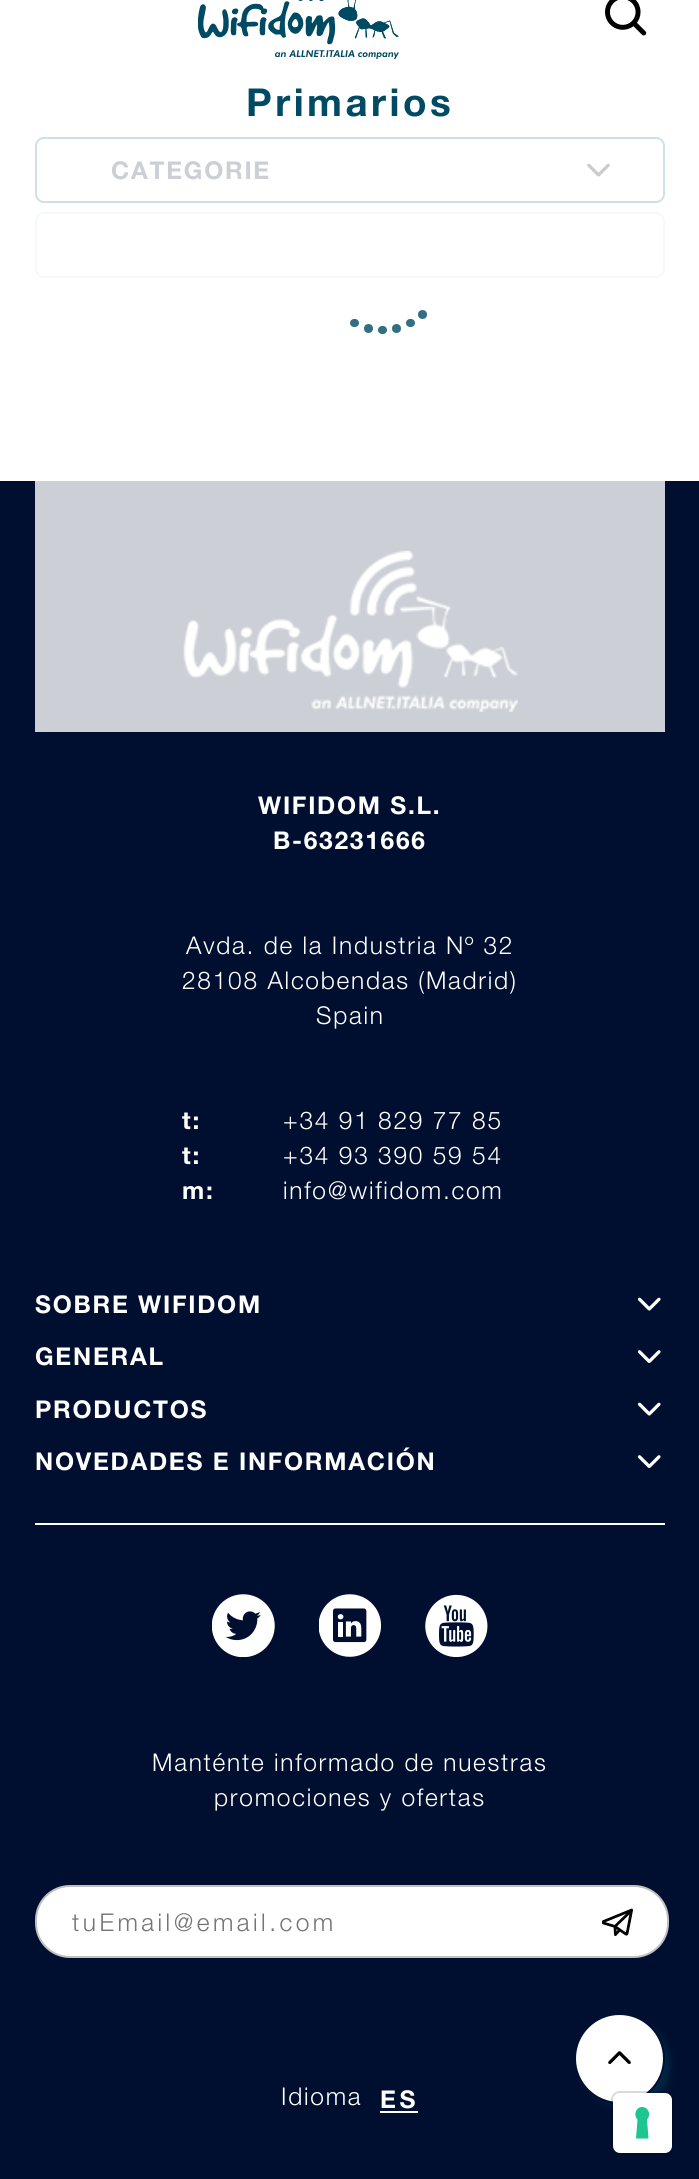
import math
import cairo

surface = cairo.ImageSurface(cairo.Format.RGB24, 699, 2179)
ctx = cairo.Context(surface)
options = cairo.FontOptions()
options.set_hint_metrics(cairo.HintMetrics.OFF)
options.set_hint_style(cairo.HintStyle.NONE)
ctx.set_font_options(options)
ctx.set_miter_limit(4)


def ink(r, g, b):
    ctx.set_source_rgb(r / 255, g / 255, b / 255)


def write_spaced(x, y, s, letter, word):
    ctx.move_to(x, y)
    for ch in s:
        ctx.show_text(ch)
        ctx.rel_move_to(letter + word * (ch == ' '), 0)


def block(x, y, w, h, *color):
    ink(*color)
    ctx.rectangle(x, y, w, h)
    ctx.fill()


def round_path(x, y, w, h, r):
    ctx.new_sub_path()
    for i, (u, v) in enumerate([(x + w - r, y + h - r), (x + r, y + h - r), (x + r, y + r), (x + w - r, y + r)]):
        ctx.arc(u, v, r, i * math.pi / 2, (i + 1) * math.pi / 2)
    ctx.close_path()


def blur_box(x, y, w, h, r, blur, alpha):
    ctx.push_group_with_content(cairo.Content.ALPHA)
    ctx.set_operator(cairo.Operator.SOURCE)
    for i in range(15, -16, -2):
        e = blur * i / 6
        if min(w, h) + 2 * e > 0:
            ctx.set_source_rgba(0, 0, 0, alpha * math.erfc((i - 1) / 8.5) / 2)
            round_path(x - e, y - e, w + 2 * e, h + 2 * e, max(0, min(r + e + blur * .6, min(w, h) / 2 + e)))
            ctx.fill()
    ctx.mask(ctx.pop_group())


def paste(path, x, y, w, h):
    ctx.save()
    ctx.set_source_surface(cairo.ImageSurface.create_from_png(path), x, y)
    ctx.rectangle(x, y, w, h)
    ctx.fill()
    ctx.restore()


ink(255, 255, 255)
ctx.paint()
paste("pic1.png", 198, 0, 201, 59)
paste("pic2.png", 605, 0, 42, 36)
ctx.select_font_face("Helvetica Neue", cairo.FontSlant.NORMAL, cairo.FontWeight.BOLD)
ctx.set_font_size(38.5)
ink(0, 74, 99)
write_spaced(246, 116, "Primarios", 3.5, 0)
round_path(36, 138, 628, 64, 8)
ink(204, 226, 230)
ctx.stroke()
ctx.set_font_size(24.5)
ink(204, 207, 213)
write_spaced(111, 179, "CATEGORIE", 1.75, 0)
paste("pic3.png", 587, 163, 23, 14)
round_path(36, 213, 628, 64, 8)
ink(245, 249, 250)
ctx.stroke()
ink(51, 110, 130)
ctx.arc(422.5, 314.5, 4.5, 0, 2 * math.pi)
ctx.fill()
round_path(350, 319, 9, 8, 4)
ctx.fill()
round_path(406, 319, 9, 8, 4)
ctx.fill()
ctx.arc(368.5, 328.5, 4.5, 0, 2 * math.pi)
ctx.fill()
round_path(378, 326, 9, 8, 4)
ctx.fill()
ctx.arc(396.5, 328.5, 4.5, 0, 2 * math.pi)
ctx.fill()
block(0, 481, 699, 1698, 0, 14, 47)
block(35, 481, 630, 251, 204, 207, 213)
paste("pic4.png", 183, 550, 335, 162)
ink(255, 255, 255)
write_spaced(258, 814, "WIFIDOM S.L.", 1.75, 0)
write_spaced(273, 849, "B-63231666", 1.75, 0)
ctx.select_font_face("Helvetica Neue Light")
write_spaced(186, 954, "Avda. de la Industria Nº 32", 1.75, 0)
write_spaced(182, 989, "28108 Alcobendas (Madrid)", 1.75, 0)
write_spaced(316, 1024, "Spain", 1.75, 0)
ctx.select_font_face("Helvetica Neue", cairo.FontSlant.NORMAL, cairo.FontWeight.BOLD)
write_spaced(182, 1129, "t:", 1.75, 0)
ctx.select_font_face("Helvetica Neue Light")
write_spaced(283, 1129, "+34 91 829 77 85", 1.75, 0)
ctx.select_font_face("Helvetica Neue", cairo.FontSlant.NORMAL, cairo.FontWeight.BOLD)
write_spaced(182, 1164, "t:", 1.75, 0)
ctx.select_font_face("Helvetica Neue Light")
write_spaced(283, 1164, "+34 93 390 59 54", 1.75, 0)
ctx.select_font_face("Helvetica Neue", cairo.FontSlant.NORMAL, cairo.FontWeight.BOLD)
write_spaced(182, 1199, "m:", 1.75, 0)
ctx.select_font_face("Helvetica Neue Light")
write_spaced(283, 1199, "info@wifidom.com", 1.75, 0)
ctx.select_font_face("Helvetica Neue", cairo.FontSlant.NORMAL, cairo.FontWeight.BOLD)
write_spaced(35, 1313, "SOBRE WIFIDOM", 1.75, 0)
paste("pic5.png", 637, 1297, 24, 14)
write_spaced(35, 1365, "GENERAL", 1.75, 0)
paste("pic6.png", 637, 1350, 24, 13)
write_spaced(35, 1418, "PRODUCTOS", 1.75, 0)
paste("pic5.png", 637, 1402, 24, 14)
write_spaced(35, 1470, "NOVEDADES E INFORMACIÓN", 1.75, 0)
paste("pic6.png", 637, 1455, 24, 13)
block(35, 1523, 630, 2, 255, 255, 255)
paste("pic7.png", 212, 1594, 63, 63)
paste("pic8.png", 319, 1594, 63, 63)
paste("pic9.png", 425, 1594, 63, 63)
ctx.select_font_face("Helvetica Neue Light")
write_spaced(152, 1771, "Manténte informado de nuestras", 1.75, 0)
write_spaced(214, 1806, "promociones y ofertas", 1.75, 0)
round_path(36, 1886, 632, 71, 34)
ctx.fill_preserve()
ink(192, 192, 192)
ctx.stroke()
ink(117, 117, 117)
write_spaced(72, 1931, "tuEmail@email.com", 3.5, 0)
paste("pic10.png", 602, 1908, 31, 28)
ink(255, 255, 255)
write_spaced(281, 2105, "Idioma", 1.75, 0)
ctx.select_font_face("Helvetica Neue", cairo.FontSlant.NORMAL, cairo.FontWeight.BOLD)
write_spaced(380, 2108, "ES", 3.5, 0)
block(380, 2111, 38, 2, 255, 255, 255)
ink(0, 74, 99)
blur_box(585, 2023, 84, 84, 42, 5, 0.5)
ink(255, 255, 255)
ctx.arc(619.5, 2058.5, 44.5, 0, 2 * math.pi)
ctx.fill_preserve()
ink(0, 14, 47)
ctx.stroke()
paste("pic11.png", 608, 2051, 23, 14)
round_path(612, 2092, 61, 61, 8)
ctx.set_source_rgba(0, 0, 0, 0.15)
ctx.stroke()
ink(255, 255, 255)
round_path(613, 2093, 59, 60, 7)
ctx.fill()
ink(28, 198, 145)
ctx.set_fill_rule(cairo.FillRule.EVEN_ODD)
ctx.new_path()
ctx.move_to(642, 2107)
ctx.curve_to(648.5, 2107, 651.5, 2115, 647, 2119.5)
ctx.line_to(648.5, 2138.5)
ctx.line_to(636, 2138.5)
ctx.line_to(637.5, 2119.5)
ctx.curve_to(633, 2115, 636, 2107, 642, 2107)
ctx.close_path()
ctx.fill()
surface.write_to_png("screenshot.png")
